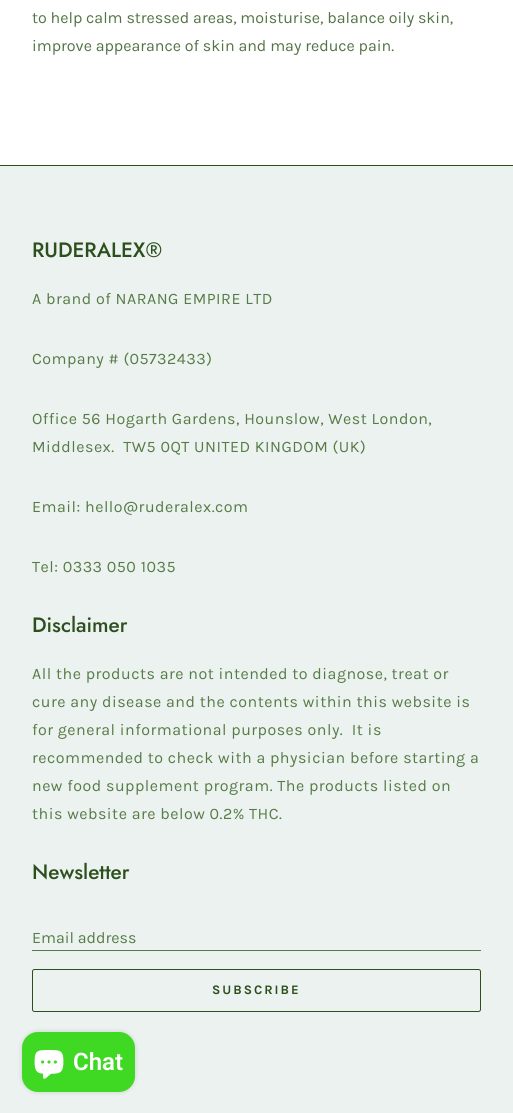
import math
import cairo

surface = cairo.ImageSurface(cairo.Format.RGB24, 513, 1113)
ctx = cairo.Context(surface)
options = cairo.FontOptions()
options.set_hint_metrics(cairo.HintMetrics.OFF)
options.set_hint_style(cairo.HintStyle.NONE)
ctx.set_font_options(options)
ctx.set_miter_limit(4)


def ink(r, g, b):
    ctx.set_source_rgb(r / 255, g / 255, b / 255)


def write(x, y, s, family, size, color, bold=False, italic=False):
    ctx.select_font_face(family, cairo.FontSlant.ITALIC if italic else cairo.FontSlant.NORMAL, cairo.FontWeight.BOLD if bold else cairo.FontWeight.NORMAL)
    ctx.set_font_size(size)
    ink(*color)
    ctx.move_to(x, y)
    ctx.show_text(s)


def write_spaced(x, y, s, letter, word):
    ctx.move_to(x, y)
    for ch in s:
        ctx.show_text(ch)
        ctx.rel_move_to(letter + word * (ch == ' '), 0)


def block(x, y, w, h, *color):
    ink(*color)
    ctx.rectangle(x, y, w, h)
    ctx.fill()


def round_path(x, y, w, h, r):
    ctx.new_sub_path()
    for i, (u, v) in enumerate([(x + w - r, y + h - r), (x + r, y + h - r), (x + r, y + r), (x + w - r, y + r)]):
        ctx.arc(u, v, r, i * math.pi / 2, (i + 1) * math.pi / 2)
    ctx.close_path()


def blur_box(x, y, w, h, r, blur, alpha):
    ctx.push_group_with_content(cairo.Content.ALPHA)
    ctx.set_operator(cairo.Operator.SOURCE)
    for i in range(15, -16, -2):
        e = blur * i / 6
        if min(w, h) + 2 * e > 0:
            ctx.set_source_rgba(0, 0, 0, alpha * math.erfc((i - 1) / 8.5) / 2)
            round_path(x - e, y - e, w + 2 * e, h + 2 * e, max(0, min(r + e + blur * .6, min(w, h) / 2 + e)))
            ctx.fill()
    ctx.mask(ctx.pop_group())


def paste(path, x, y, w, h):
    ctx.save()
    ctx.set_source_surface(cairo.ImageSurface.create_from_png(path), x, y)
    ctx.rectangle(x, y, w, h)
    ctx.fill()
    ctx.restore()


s1 = dict(family="Karla", size=16, color=(83, 115, 68))
s2 = dict(family="Jost Medium", size=20.75, color=(45, 79, 30))
s3 = dict(family="Karla", size=16, color=(87, 123, 70))
s4 = dict(family="Roboto SemiBold", size=24, color=(255, 255, 255))

ink(255, 255, 255)
ctx.paint()
write(32, 23, "to help calm stressed areas, moisturise, balance oily skin,", **s1)
write(32, 51, "improve appearance of skin and may reduce pain.", **s1)
block(0, 166, 513, 947, 235, 242, 239)
block(0, 165, 513, 1, 45, 79, 30)
write(32, 257, "RUDERALEX®", **s2)
ctx.select_font_face("Karla")
ctx.set_font_size(16)
ink(87, 123, 70)
write_spaced(32, 304, "A brand of NARANG EMPIRE LTD", 0.5, 0)
write_spaced(32, 364, "Company # (05732433)", 0.5, 0)
write_spaced(32, 424, "Office 56 Hogarth Gardens, Hounslow, West London,", 0.5, 0)
write_spaced(32, 452, "Middlesex.  TW5 0QT UNITED KINGDOM (UK)", 0.5, 0)
write_spaced(32, 512, "Email: hello@ruderalex.com", 0.5, 0)
write_spaced(32, 572, "Tel: 0333 050 1035", 0.5, 0)
write(32, 632, "Disclaimer", **s2)
ctx.select_font_face("Karla")
ctx.set_font_size(16)
ink(87, 123, 70)
write_spaced(32, 679, "All the products are not intended to diagnose, treat or", 0.5, 0)
write_spaced(32, 707, "cure any disease and the contents within this website is", 0.5, 0)
write_spaced(32, 735, "for general informational purposes only.  It is", 0.5, 0)
write_spaced(32, 763, "recommended to check with a physician before starting a", 0.5, 0)
write_spaced(32, 791, "new food supplement program. The products listed on", 0.5, 0)
write_spaced(32, 819, "this website are below 0.2% THC.", 0.5, 0)
write(32, 879, "Newsletter", **s2)
write(32, 943, "Email address", **s3)
block(32, 950, 449, 1, 87, 123, 70)
round_path(32.5, 969.5, 448, 42, 2)
ink(45, 79, 30)
ctx.set_line_width(1)
ctx.stroke()
ctx.select_font_face("Karla", cairo.FontSlant.NORMAL, cairo.FontWeight.BOLD)
ctx.set_font_size(13)
write_spaced(212, 994, "SUBSCRIBE", 2, 0)
ink(0, 0, 0)
blur_box(22, 1032, 113, 60, 16, 2.5, 0.15)
ink(63, 216, 35)
round_path(22, 1032, 113, 60, 16)
ctx.fill()
paste("pic1.png", 34, 1050, 30, 29)
write(73, 1070, "Chat", **s4)
surface.write_to_png("screenshot.png")
